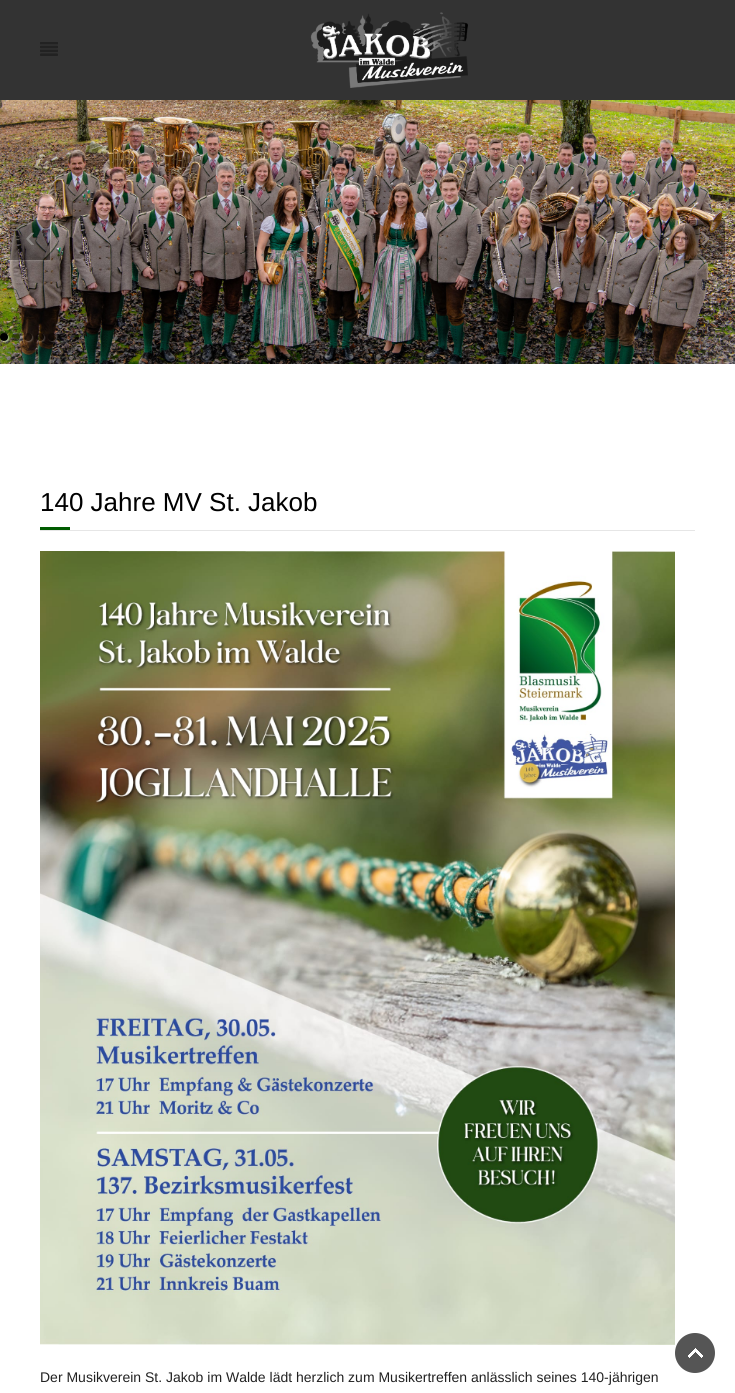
import math
import cairo

surface = cairo.ImageSurface(cairo.Format.RGB24, 735, 1393)
ctx = cairo.Context(surface)
options = cairo.FontOptions()
options.set_hint_metrics(cairo.HintMetrics.OFF)
options.set_hint_style(cairo.HintStyle.NONE)
ctx.set_font_options(options)
ctx.set_miter_limit(4)


def ink(r, g, b):
    ctx.set_source_rgb(r / 255, g / 255, b / 255)


def write(x, y, s, family, size, color, bold=False, italic=False):
    ctx.select_font_face(family, cairo.FontSlant.ITALIC if italic else cairo.FontSlant.NORMAL, cairo.FontWeight.BOLD if bold else cairo.FontWeight.NORMAL)
    ctx.set_font_size(size)
    ink(*color)
    ctx.move_to(x, y)
    ctx.show_text(s)


def block(x, y, w, h, *color):
    ink(*color)
    ctx.rectangle(x, y, w, h)
    ctx.fill()


def round_path(x, y, w, h, r):
    ctx.new_sub_path()
    for i, (u, v) in enumerate([(x + w - r, y + h - r), (x + r, y + h - r), (x + r, y + r), (x + w - r, y + r)]):
        ctx.arc(u, v, r, i * math.pi / 2, (i + 1) * math.pi / 2)
    ctx.close_path()


def blur_box(x, y, w, h, r, blur, alpha):
    ctx.push_group_with_content(cairo.Content.ALPHA)
    ctx.set_operator(cairo.Operator.SOURCE)
    for i in range(15, -16, -2):
        e = blur * i / 6
        if min(w, h) + 2 * e > 0:
            ctx.set_source_rgba(0, 0, 0, alpha * math.erfc((i - 1) / 8.5) / 2)
            round_path(x - e, y - e, w + 2 * e, h + 2 * e, max(0, min(r + e + blur * .6, min(w, h) / 2 + e)))
            ctx.fill()
    ctx.mask(ctx.pop_group())


def paste(path, x, y, w, h):
    ctx.save()
    ctx.set_source_surface(cairo.ImageSurface.create_from_png(path), x, y)
    ctx.rectangle(x, y, w, h)
    ctx.fill()
    ctx.restore()


s1 = dict(family="Liberation Sans", size=31, color=(141, 138, 135))
s2 = dict(family="Liberation Sans", size=31, color=(142, 130, 124))
s3 = dict(family="Liberation Sans", size=26, color=(0, 0, 0))
s4 = dict(family="Liberation Sans", size=14, color=(34, 34, 34))

ink(255, 255, 255)
ctx.paint()
block(0, 0, 735, 100, 51, 51, 51)
paste("pic1.png", 40, 42, 18, 14)
paste("pic2.png", 310, 12, 158, 76)
paste("pic3.png", 0, 100, 735, 264)
ctx.save()
ctx.set_fill_rule(cairo.FillRule.EVEN_ODD)
ctx.new_path()
ctx.move_to(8, 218)
ctx.line_to(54, 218)
ctx.line_to(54, 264)
ctx.line_to(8, 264)
ctx.close_path()
ctx.move_to(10, 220)
ctx.line_to(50, 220)
ctx.line_to(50, 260)
ctx.line_to(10, 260)
ctx.close_path()
ctx.clip()
ink(255, 255, 255)
blur_box(11, 221, 40, 40, 0, 0.5, 0.15)
ctx.restore()
ctx.set_source_rgba(0, 0, 0, 0.3)
ctx.rectangle(10, 220, 40, 40)
ctx.fill()
write(25, 247, "‹", **s1)
ctx.save()
ctx.set_fill_rule(cairo.FillRule.EVEN_ODD)
ctx.new_path()
ctx.move_to(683, 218)
ctx.line_to(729, 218)
ctx.line_to(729, 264)
ctx.line_to(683, 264)
ctx.close_path()
ctx.move_to(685, 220)
ctx.line_to(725, 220)
ctx.line_to(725, 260)
ctx.line_to(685, 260)
ctx.close_path()
ctx.clip()
ink(255, 255, 255)
blur_box(686, 221, 40, 40, 0, 0.5, 0.15)
ctx.restore()
ctx.set_source_rgba(0, 0, 0, 0.3)
ctx.rectangle(685, 220, 40, 40)
ctx.fill()
write(700, 247, "›", **s2)
ink(255, 255, 255)
blur_box(1, 334, 8, 8, 4, 0.5, 0.5)
ink(0, 0, 0)
ctx.arc(4, 337, 4, 0, 2 * math.pi)
ctx.fill()
ctx.save()
ctx.set_fill_rule(cairo.FillRule.EVEN_ODD)
ctx.new_path()
ctx.move_to(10, 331)
ctx.line_to(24, 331)
ctx.line_to(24, 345)
ctx.line_to(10, 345)
ctx.close_path()
ctx.move_to(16, 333)
ctx.curve_to(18, 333, 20, 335, 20, 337)
ctx.curve_to(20, 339, 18, 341, 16, 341)
ctx.curve_to(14, 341, 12, 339, 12, 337)
ctx.curve_to(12, 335, 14, 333, 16, 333)
ctx.close_path()
ctx.clip()
ink(255, 255, 255)
blur_box(13, 334, 8, 8, 4, 0.5, 0.2)
ctx.restore()
ctx.set_source_rgba(0, 0, 0, 0.4)
ctx.arc(16, 337, 4, 0, 2 * math.pi)
ctx.fill()
ctx.save()
ctx.set_fill_rule(cairo.FillRule.EVEN_ODD)
ctx.new_path()
ctx.move_to(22, 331)
ctx.line_to(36, 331)
ctx.line_to(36, 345)
ctx.line_to(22, 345)
ctx.close_path()
ctx.move_to(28, 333)
ctx.curve_to(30, 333, 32, 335, 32, 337)
ctx.curve_to(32, 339, 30, 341, 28, 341)
ctx.curve_to(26, 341, 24, 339, 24, 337)
ctx.curve_to(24, 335, 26, 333, 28, 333)
ctx.close_path()
ctx.clip()
ink(255, 255, 255)
blur_box(25, 334, 8, 8, 4, 0.5, 0.2)
ctx.restore()
ctx.arc(28, 337, 4, 0, 2 * math.pi)
ctx.fill()
ctx.save()
ctx.set_fill_rule(cairo.FillRule.EVEN_ODD)
ctx.new_path()
ctx.move_to(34, 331)
ctx.line_to(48, 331)
ctx.line_to(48, 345)
ctx.line_to(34, 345)
ctx.close_path()
ctx.move_to(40, 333)
ctx.curve_to(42, 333, 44, 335, 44, 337)
ctx.curve_to(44, 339, 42, 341, 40, 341)
ctx.curve_to(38, 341, 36, 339, 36, 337)
ctx.curve_to(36, 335, 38, 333, 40, 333)
ctx.close_path()
ctx.clip()
ink(255, 255, 255)
blur_box(37, 334, 8, 8, 4, 0.5, 0.2)
ctx.restore()
ctx.arc(40, 337, 4, 0, 2 * math.pi)
ctx.fill()
ctx.save()
ctx.set_fill_rule(cairo.FillRule.EVEN_ODD)
ctx.new_path()
ctx.move_to(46, 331)
ctx.line_to(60, 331)
ctx.line_to(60, 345)
ctx.line_to(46, 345)
ctx.close_path()
ctx.move_to(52, 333)
ctx.curve_to(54, 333, 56, 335, 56, 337)
ctx.curve_to(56, 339, 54, 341, 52, 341)
ctx.curve_to(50, 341, 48, 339, 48, 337)
ctx.curve_to(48, 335, 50, 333, 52, 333)
ctx.close_path()
ctx.clip()
ink(255, 255, 255)
blur_box(49, 334, 8, 8, 4, 0.5, 0.2)
ctx.restore()
ctx.arc(52, 337, 4, 0, 2 * math.pi)
ctx.fill()
ctx.save()
ctx.set_fill_rule(cairo.FillRule.EVEN_ODD)
ctx.new_path()
ctx.move_to(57, 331)
ctx.line_to(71, 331)
ctx.line_to(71, 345)
ctx.line_to(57, 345)
ctx.close_path()
ctx.move_to(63, 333)
ctx.curve_to(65, 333, 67, 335, 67, 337)
ctx.curve_to(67, 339, 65, 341, 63, 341)
ctx.curve_to(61, 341, 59, 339, 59, 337)
ctx.curve_to(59, 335, 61, 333, 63, 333)
ctx.close_path()
ctx.clip()
ink(255, 255, 255)
blur_box(60, 334, 8, 8, 4, 0.5, 0.2)
ctx.restore()
ctx.arc(63, 337, 4, 0, 2 * math.pi)
ctx.fill()
ctx.save()
ctx.set_fill_rule(cairo.FillRule.EVEN_ODD)
ctx.new_path()
ctx.move_to(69, 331)
ctx.line_to(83, 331)
ctx.line_to(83, 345)
ctx.line_to(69, 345)
ctx.close_path()
ctx.move_to(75, 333)
ctx.curve_to(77, 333, 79, 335, 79, 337)
ctx.curve_to(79, 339, 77, 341, 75, 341)
ctx.curve_to(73, 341, 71, 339, 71, 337)
ctx.curve_to(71, 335, 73, 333, 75, 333)
ctx.close_path()
ctx.clip()
ink(255, 255, 255)
blur_box(72, 334, 8, 8, 4, 0.5, 0.2)
ctx.restore()
ctx.arc(75, 337, 4, 0, 2 * math.pi)
ctx.fill()
block(40, 530, 655, 1, 230, 230, 230)
write(40, 511, "140 Jahre MV St. Jakob", **s3)
block(40, 527, 30, 3, 0, 91, 0)
paste("pic4.png", 40, 551, 635, 794)
write(40, 1382, "Der Musikverein St. Jakob im Walde lädt herzlich zum Musikertreffen anlässlich seines 140-jährigen", **s4)
ink(85, 85, 85)
ctx.new_path()
ctx.arc(695, 1353, 20, 0, 2 * math.pi)
ctx.fill()
paste("pic5.png", 688, 1348, 15, 10)
surface.write_to_png("screenshot.png")
